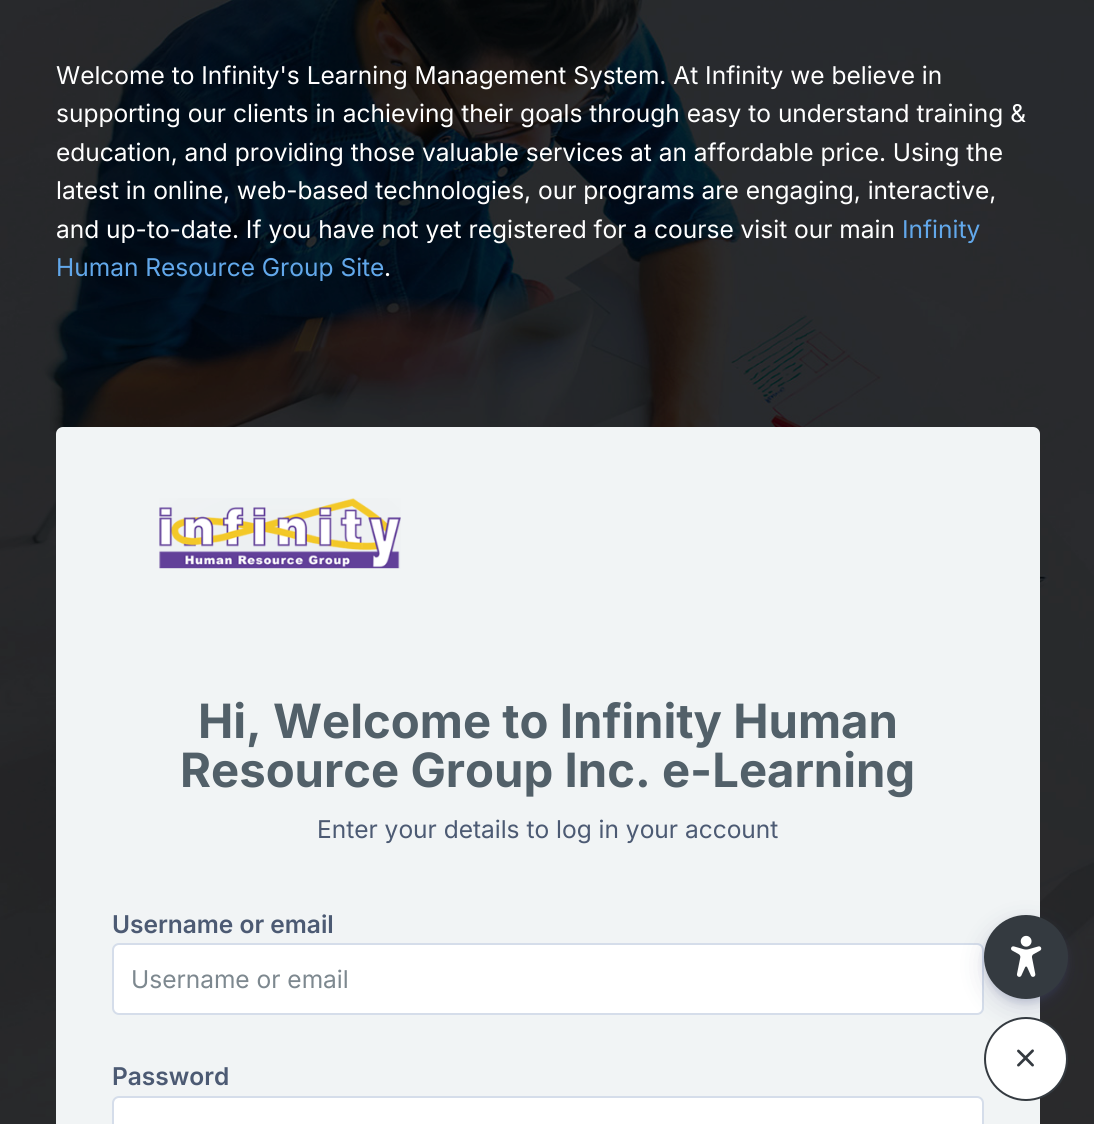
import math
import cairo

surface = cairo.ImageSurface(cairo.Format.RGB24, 1094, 1124)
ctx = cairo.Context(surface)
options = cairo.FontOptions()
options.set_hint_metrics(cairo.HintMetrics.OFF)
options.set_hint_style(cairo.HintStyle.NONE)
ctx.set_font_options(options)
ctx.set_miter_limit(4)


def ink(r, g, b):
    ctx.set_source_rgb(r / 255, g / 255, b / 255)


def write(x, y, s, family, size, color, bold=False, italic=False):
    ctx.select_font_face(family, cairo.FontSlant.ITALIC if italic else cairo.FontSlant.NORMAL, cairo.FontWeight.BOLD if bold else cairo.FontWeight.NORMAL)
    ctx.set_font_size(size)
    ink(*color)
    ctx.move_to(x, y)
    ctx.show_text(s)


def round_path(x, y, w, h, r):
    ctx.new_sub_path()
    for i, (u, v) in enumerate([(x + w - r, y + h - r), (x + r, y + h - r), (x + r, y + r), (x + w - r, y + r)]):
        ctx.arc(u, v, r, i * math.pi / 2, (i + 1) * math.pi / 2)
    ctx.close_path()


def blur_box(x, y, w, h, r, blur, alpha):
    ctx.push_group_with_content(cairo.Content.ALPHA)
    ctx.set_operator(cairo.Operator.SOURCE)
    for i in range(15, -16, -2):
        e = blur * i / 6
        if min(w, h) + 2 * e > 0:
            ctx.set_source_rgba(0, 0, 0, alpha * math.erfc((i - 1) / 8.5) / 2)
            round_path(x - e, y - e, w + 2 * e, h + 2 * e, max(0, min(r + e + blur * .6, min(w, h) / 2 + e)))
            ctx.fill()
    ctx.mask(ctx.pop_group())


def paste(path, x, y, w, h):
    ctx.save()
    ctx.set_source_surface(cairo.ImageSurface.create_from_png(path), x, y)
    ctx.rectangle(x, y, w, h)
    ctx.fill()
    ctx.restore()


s1 = dict(family="Inter", size=24.5, color=(255, 255, 255))
s2 = dict(family="Inter", size=24.5, color=(98, 168, 235))
s3 = dict(family="Inter", size=47.25, color=(82, 96, 105), bold=True)
s4 = dict(family="Inter", size=24.5, color=(76, 90, 115))
s5 = dict(family="Inter SemiBold", size=24.5, color=(76, 90, 115))
s6 = dict(family="Inter", size=24.5, color=(125, 136, 143))

ink(255, 255, 255)
ctx.paint()
paste("pic1.png", 0, 0, 1094, 1124)
write(56, 84, "Welcome to Infinity's Learning Management System. At Infinity we believe in", **s1)
write(56, 122, "supporting our clients in achieving their goals through easy to understand training &", **s1)
write(56, 161, "education, and providing those valuable services at an affordable price. Using the", **s1)
write(56, 199, "latest in online, web-based technologies, our programs are engaging, interactive,", **s1)
write(56, 238, "and up-to-date. If you have not yet registered for a course visit our main", **s1)
write(902, 238, "Infinity", **s2)
write(56, 276, "Human Resource Group Site", **s2)
write(384, 276, ".", **s1)
ink(241, 244, 245)
round_path(56, 427, 984, 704, 7)
ctx.fill()
paste("pic2.png", 159, 498, 242, 71)
write(198, 738, "Hi, Welcome to Infinity Human", **s3)
write(180, 787, "Resource Group Inc. e-Learning", **s3)
write(317, 838, "Enter your details to log in your account", **s4)
write(112, 933, "Username or email", **s5)
ink(255, 255, 255)
round_path(113, 944, 870, 70, 6)
ctx.fill_preserve()
ink(213, 221, 234)
ctx.stroke()
write(131, 988, "Username or email", **s6)
write(112, 1085, "Password", **s5)
ink(255, 255, 255)
round_path(114, 1097, 868, 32, 5)
ctx.fill()
round_path(113, 1097, 870, 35, 6)
ink(213, 221, 234)
ctx.stroke()
ink(93, 100, 148)
blur_box(984, 919, 84, 84, 42, 3.5, 0.2)
ink(37, 44, 97)
blur_box(984, 924, 84, 84, 42, 13, 0.15)
ink(52, 58, 64)
ctx.arc(1026, 957, 41, 0, 2 * math.pi)
ctx.fill_preserve()
ctx.stroke()
paste("pic3.png", 1011, 935, 31, 42)
ink(255, 255, 255)
ctx.arc(1026, 1059, 41, 0, 2 * math.pi)
ctx.fill_preserve()
ink(52, 58, 64)
ctx.stroke()
paste("pic4.png", 1017, 1049, 17, 18)
surface.write_to_png("screenshot.png")
